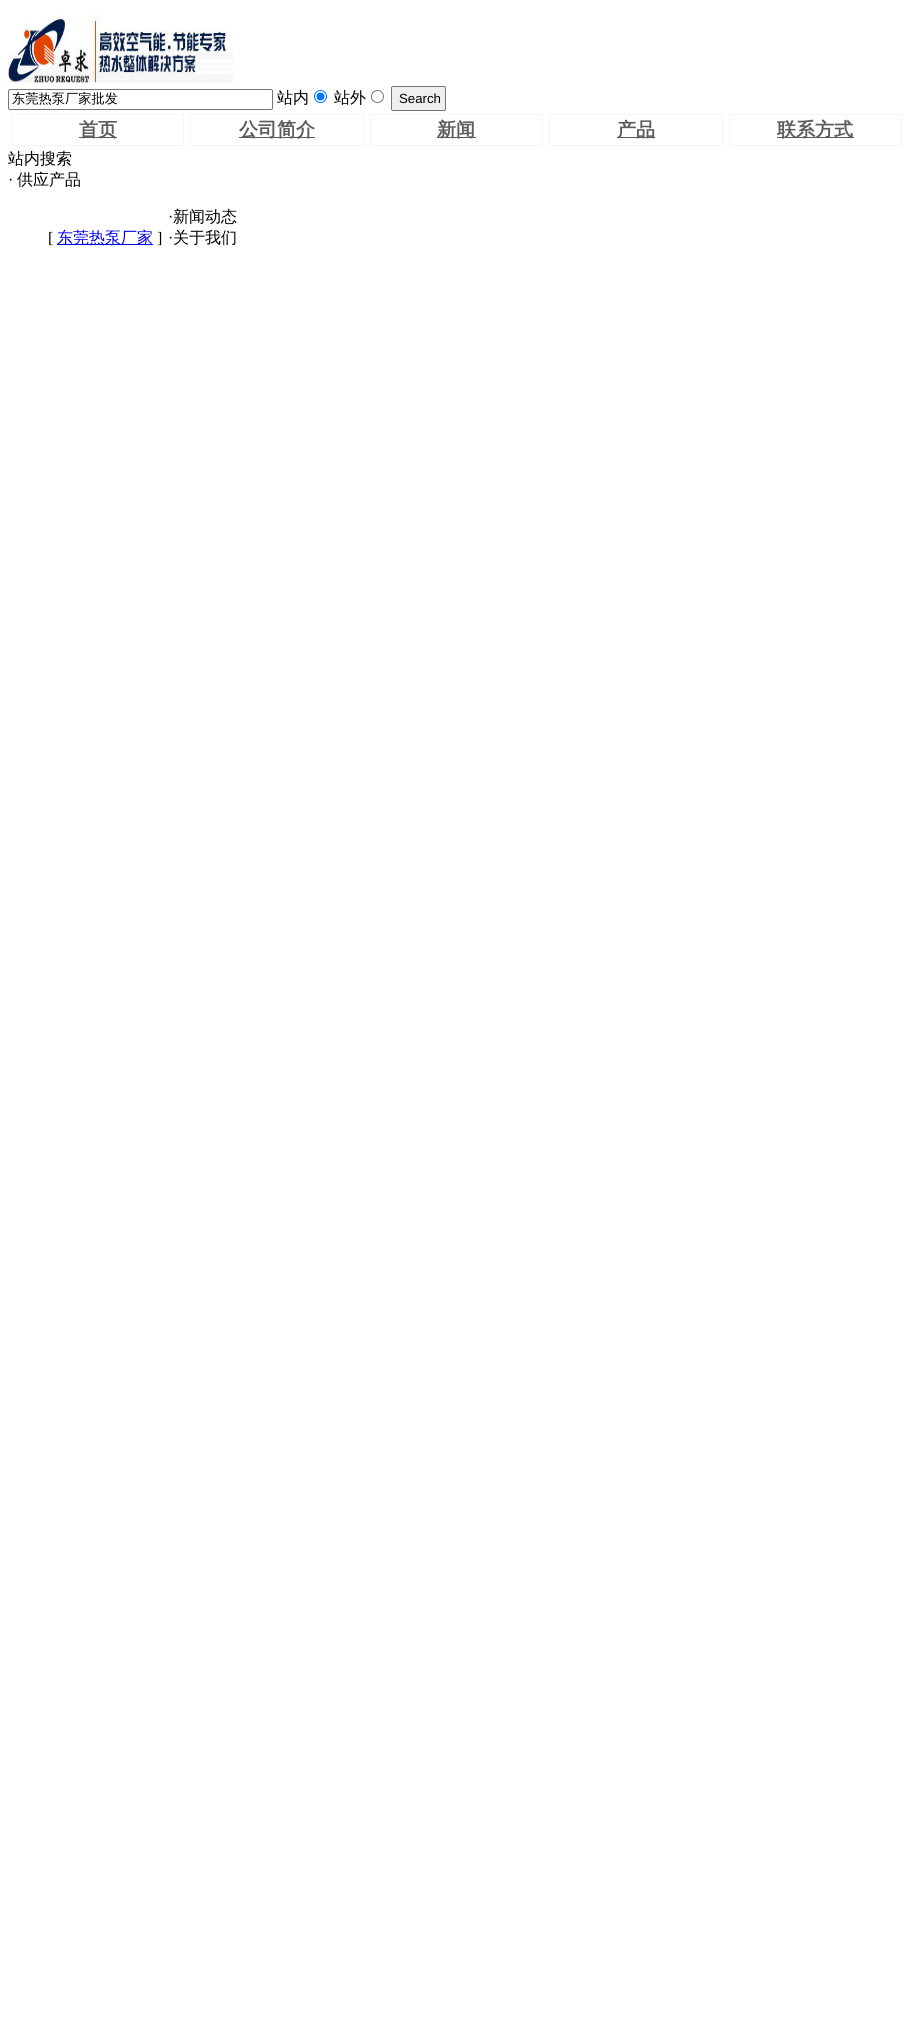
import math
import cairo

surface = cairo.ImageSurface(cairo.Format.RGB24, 918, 2040)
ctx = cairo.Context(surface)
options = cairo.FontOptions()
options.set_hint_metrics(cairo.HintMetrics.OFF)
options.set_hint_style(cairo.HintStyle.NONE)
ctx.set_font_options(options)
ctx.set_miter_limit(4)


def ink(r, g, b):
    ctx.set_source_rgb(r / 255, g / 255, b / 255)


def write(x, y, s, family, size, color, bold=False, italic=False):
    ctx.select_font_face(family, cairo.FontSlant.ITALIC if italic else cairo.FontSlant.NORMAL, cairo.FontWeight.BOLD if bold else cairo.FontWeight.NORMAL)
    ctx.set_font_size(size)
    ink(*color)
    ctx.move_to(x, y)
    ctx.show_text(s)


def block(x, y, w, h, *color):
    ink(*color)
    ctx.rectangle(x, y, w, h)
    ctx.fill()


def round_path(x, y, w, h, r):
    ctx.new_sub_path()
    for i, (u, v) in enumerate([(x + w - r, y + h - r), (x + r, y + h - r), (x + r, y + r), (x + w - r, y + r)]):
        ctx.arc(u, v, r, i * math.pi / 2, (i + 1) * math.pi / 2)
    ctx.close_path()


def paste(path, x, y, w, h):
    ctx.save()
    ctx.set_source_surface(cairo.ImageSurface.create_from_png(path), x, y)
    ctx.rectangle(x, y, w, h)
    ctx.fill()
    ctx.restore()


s1 = dict(family="WenQuanYi Zen Hei Medium", size=13.25, color=(0, 0, 0))
s2 = dict(family="WenQuanYi Zen Hei Medium", size=16, color=(0, 0, 0))
s3 = dict(family="Liberation Sans", size=13.25, color=(0, 0, 0))
s4 = dict(family="WenQuanYi Zen Hei", size=19, color=(92, 92, 92), bold=True)
s5 = dict(family="Liberation Serif", size=16, color=(0, 0, 0))
s6 = dict(family="WenQuanYi Zen Hei Medium", size=16, color=(0, 0, 238))

ink(255, 255, 255)
ctx.paint()
paste("pic1.png", 8, 15, 225, 68)
round_path(8.5, 89.5, 264, 20, 1.5)
ink(118, 118, 118)
ctx.set_line_width(1)
ctx.stroke()
write(12, 103, "东莞热泵厂家批发", **s1)
write(277, 103, "站内", **s2)
ctx.new_path()
ctx.arc(320.5, 96.5, 6, 0, 2 * math.pi)
ink(0, 117, 255)
ctx.stroke()
ctx.arc(320.5, 96.5, 4, 0, 2 * math.pi)
ctx.fill()
write(334, 103, "站外", **s2)
ctx.new_path()
ctx.arc(377.5, 96.5, 6, 0, 2 * math.pi)
ink(118, 118, 118)
ctx.stroke()
ink(239, 239, 239)
round_path(391.5, 86.5, 54, 24, 1.5)
ctx.fill_preserve()
ink(118, 118, 118)
ctx.stroke()
write(399, 103, "Search", **s3)
ctx.rectangle(11.5, 114.5, 172, 31)
ink(245, 245, 245)
ctx.stroke()
block(79, 137, 38, 1, 92, 92, 92)
write(79, 136, "首页", **s4)
ctx.rectangle(190.5, 114.5, 173, 31)
ink(245, 245, 245)
ctx.stroke()
block(239, 137, 76, 1, 92, 92, 92)
write(239, 136, "公司简介", **s4)
ctx.rectangle(370.5, 114.5, 172, 31)
ink(245, 245, 245)
ctx.stroke()
block(437, 137, 39, 1, 92, 92, 92)
write(437, 136, "新闻", **s4)
ctx.rectangle(549.5, 114.5, 173, 31)
ink(245, 245, 245)
ctx.stroke()
block(617, 137, 38, 1, 92, 92, 92)
write(617, 136, "产品", **s4)
ctx.rectangle(729.5, 114.5, 172, 31)
ink(245, 245, 245)
ctx.stroke()
block(777, 137, 77, 1, 92, 92, 92)
write(777, 136, "联系方式", **s4)
write(8, 164, "站内搜索", **s2)
write(8, 185, "·", **s5)
write(17, 185, "供应产品", **s2)
write(48, 243, "[", **s5)
block(57, 244, 96, 1, 0, 0, 238)
write(57, 243, "东莞热泵厂家", **s6)
write(157, 243, "]", **s5)
write(168, 222, "·", **s5)
write(173, 222, "新闻动态", **s2)
write(168, 243, "·", **s5)
write(173, 243, "关于我们", **s2)
surface.write_to_png("screenshot.png")
